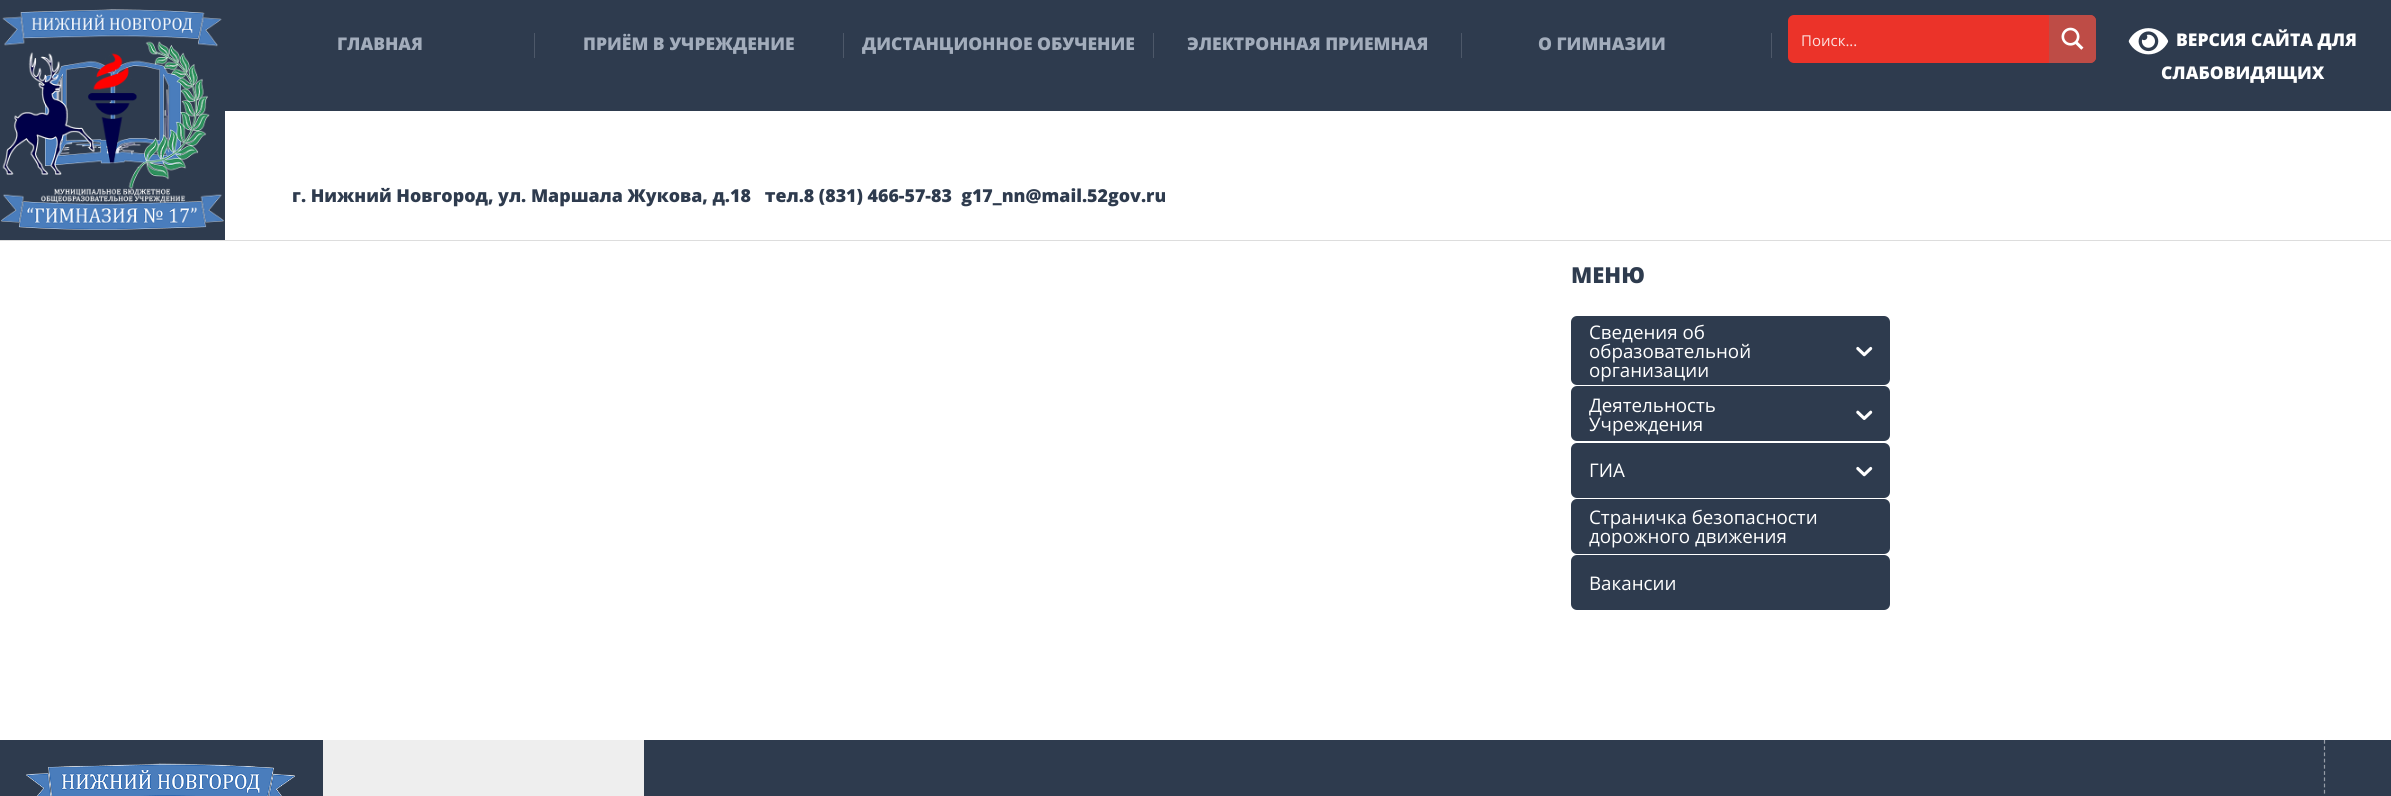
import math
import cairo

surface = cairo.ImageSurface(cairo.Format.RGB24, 2391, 796)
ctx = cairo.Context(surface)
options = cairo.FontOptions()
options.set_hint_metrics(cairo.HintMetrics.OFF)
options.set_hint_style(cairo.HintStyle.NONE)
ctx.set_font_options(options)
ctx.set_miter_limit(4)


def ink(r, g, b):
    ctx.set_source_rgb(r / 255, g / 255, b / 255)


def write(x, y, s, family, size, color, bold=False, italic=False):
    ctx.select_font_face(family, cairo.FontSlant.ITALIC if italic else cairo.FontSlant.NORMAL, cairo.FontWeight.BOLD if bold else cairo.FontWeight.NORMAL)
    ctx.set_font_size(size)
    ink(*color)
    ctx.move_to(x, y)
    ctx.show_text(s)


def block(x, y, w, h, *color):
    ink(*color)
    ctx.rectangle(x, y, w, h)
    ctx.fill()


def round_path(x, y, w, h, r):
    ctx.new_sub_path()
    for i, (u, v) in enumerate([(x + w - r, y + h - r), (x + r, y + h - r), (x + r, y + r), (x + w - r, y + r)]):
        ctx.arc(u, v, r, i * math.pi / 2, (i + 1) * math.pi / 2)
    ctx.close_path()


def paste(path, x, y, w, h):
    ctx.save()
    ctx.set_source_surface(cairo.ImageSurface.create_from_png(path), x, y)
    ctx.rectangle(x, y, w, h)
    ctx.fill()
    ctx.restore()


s1 = dict(family="Open Sans ExtraBold", size=17.5, color=(163, 173, 188))
s2 = dict(family="Open Sans", size=15, color=(252, 224, 223))
s3 = dict(family="Open Sans ExtraBold", size=17.5, color=(255, 255, 255))
s4 = dict(family="Open Sans ExtraBold", size=17.8, color=(46, 59, 78))
s5 = dict(family="Open Sans ExtraBold", size=22, color=(46, 59, 78))
s6 = dict(family="Open Sans", size=18.75, color=(255, 255, 255))

ink(255, 255, 255)
ctx.paint()
block(0, 240, 2391, 1, 221, 221, 221)
block(0, 0, 225, 240, 46, 59, 78)
paste("pic1.png", 1, 9, 223, 221)
block(225, 0, 2166, 111, 46, 59, 78)
write(337, 50, "ГЛАВНАЯ", **s1)
block(534, 33, 1, 25, 77, 88, 105)
write(583, 50, "ПРИЁМ В УЧРЕЖДЕНИЕ", **s1)
block(843, 33, 1, 25, 77, 88, 105)
write(862, 50, "ДИСТАНЦИОННОЕ ОБУЧЕНИЕ", **s1)
block(1153, 33, 1, 25, 77, 88, 105)
write(1187, 50, "ЭЛЕКТРОННАЯ ПРИЕМНАЯ", **s1)
block(1461, 33, 1, 25, 77, 88, 105)
write(1538, 50, "О ГИМНАЗИИ", **s1)
block(1771, 33, 1, 25, 77, 88, 105)
ink(235, 51, 41)
round_path(1788, 15, 308, 48, 6)
ctx.fill()
write(1801, 46, "Поиск...", **s2)
ink(190, 76, 70)
ctx.new_path()
ctx.move_to(2049, 15)
ctx.line_to(2090, 15)
ctx.curve_to(2093.5, 15, 2096, 17.5, 2096, 21)
ctx.line_to(2096, 57)
ctx.curve_to(2096, 60.5, 2093.5, 63, 2090, 63)
ctx.line_to(2049, 63)
ctx.close_path()
ctx.fill()
paste("pic2.png", 2061, 27, 23, 23)
paste("pic3.png", 2128, 28, 41, 27)
write(2176, 46, "ВЕРСИЯ САЙТА ДЛЯ", **s3)
write(2161, 79, "СЛАБОВИДЯЩИХ", **s3)
write(292, 202, "г. Нижний Новгород, ул. Маршала Жукова, д.18   тел.8 (831) 466-57-83  g17_nn@mail.52gov.ru", **s4)
write(1571, 283, "МЕНЮ", **s5)
round_path(1571, 316, 319, 69, 6)
ctx.fill()
write(1589, 339, "Сведения об", **s6)
write(1589, 358, "образовательной", **s6)
write(1589, 377, "организации", **s6)
paste("pic4.png", 1856, 346, 17, 11)
ink(46, 59, 78)
round_path(1571, 386, 319, 55, 6)
ctx.fill()
write(1589, 412, "Деятельность", **s6)
write(1589, 431, "Учреждения", **s6)
paste("pic5.png", 1856, 410, 17, 10)
ink(46, 59, 78)
round_path(1571, 443, 319, 55, 6)
ctx.fill()
write(1589, 477, "ГИА", **s6)
paste("pic4.png", 1856, 466, 17, 11)
ink(46, 59, 78)
round_path(1571, 499, 319, 55, 6)
ctx.fill()
write(1589, 524, "Страничка безопасности", **s6)
write(1589, 543, "дорожного движения", **s6)
ink(46, 59, 78)
round_path(1571, 555, 319, 55, 6)
ctx.fill()
write(1589, 590, "Вакансии", **s6)
block(0, 740, 2391, 56, 46, 59, 78)
paste("pic6.png", 26, 763, 269, 33)
block(323, 740, 321, 56, 238, 238, 238)
ctx.new_path()
ctx.move_to(2324.5, 740)
ctx.line_to(2324.5, 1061)
ink(151, 157, 167)
ctx.set_line_width(1.2)
ctx.set_dash([3.75, 2.48])
ctx.stroke()
surface.write_to_png("screenshot.png")
